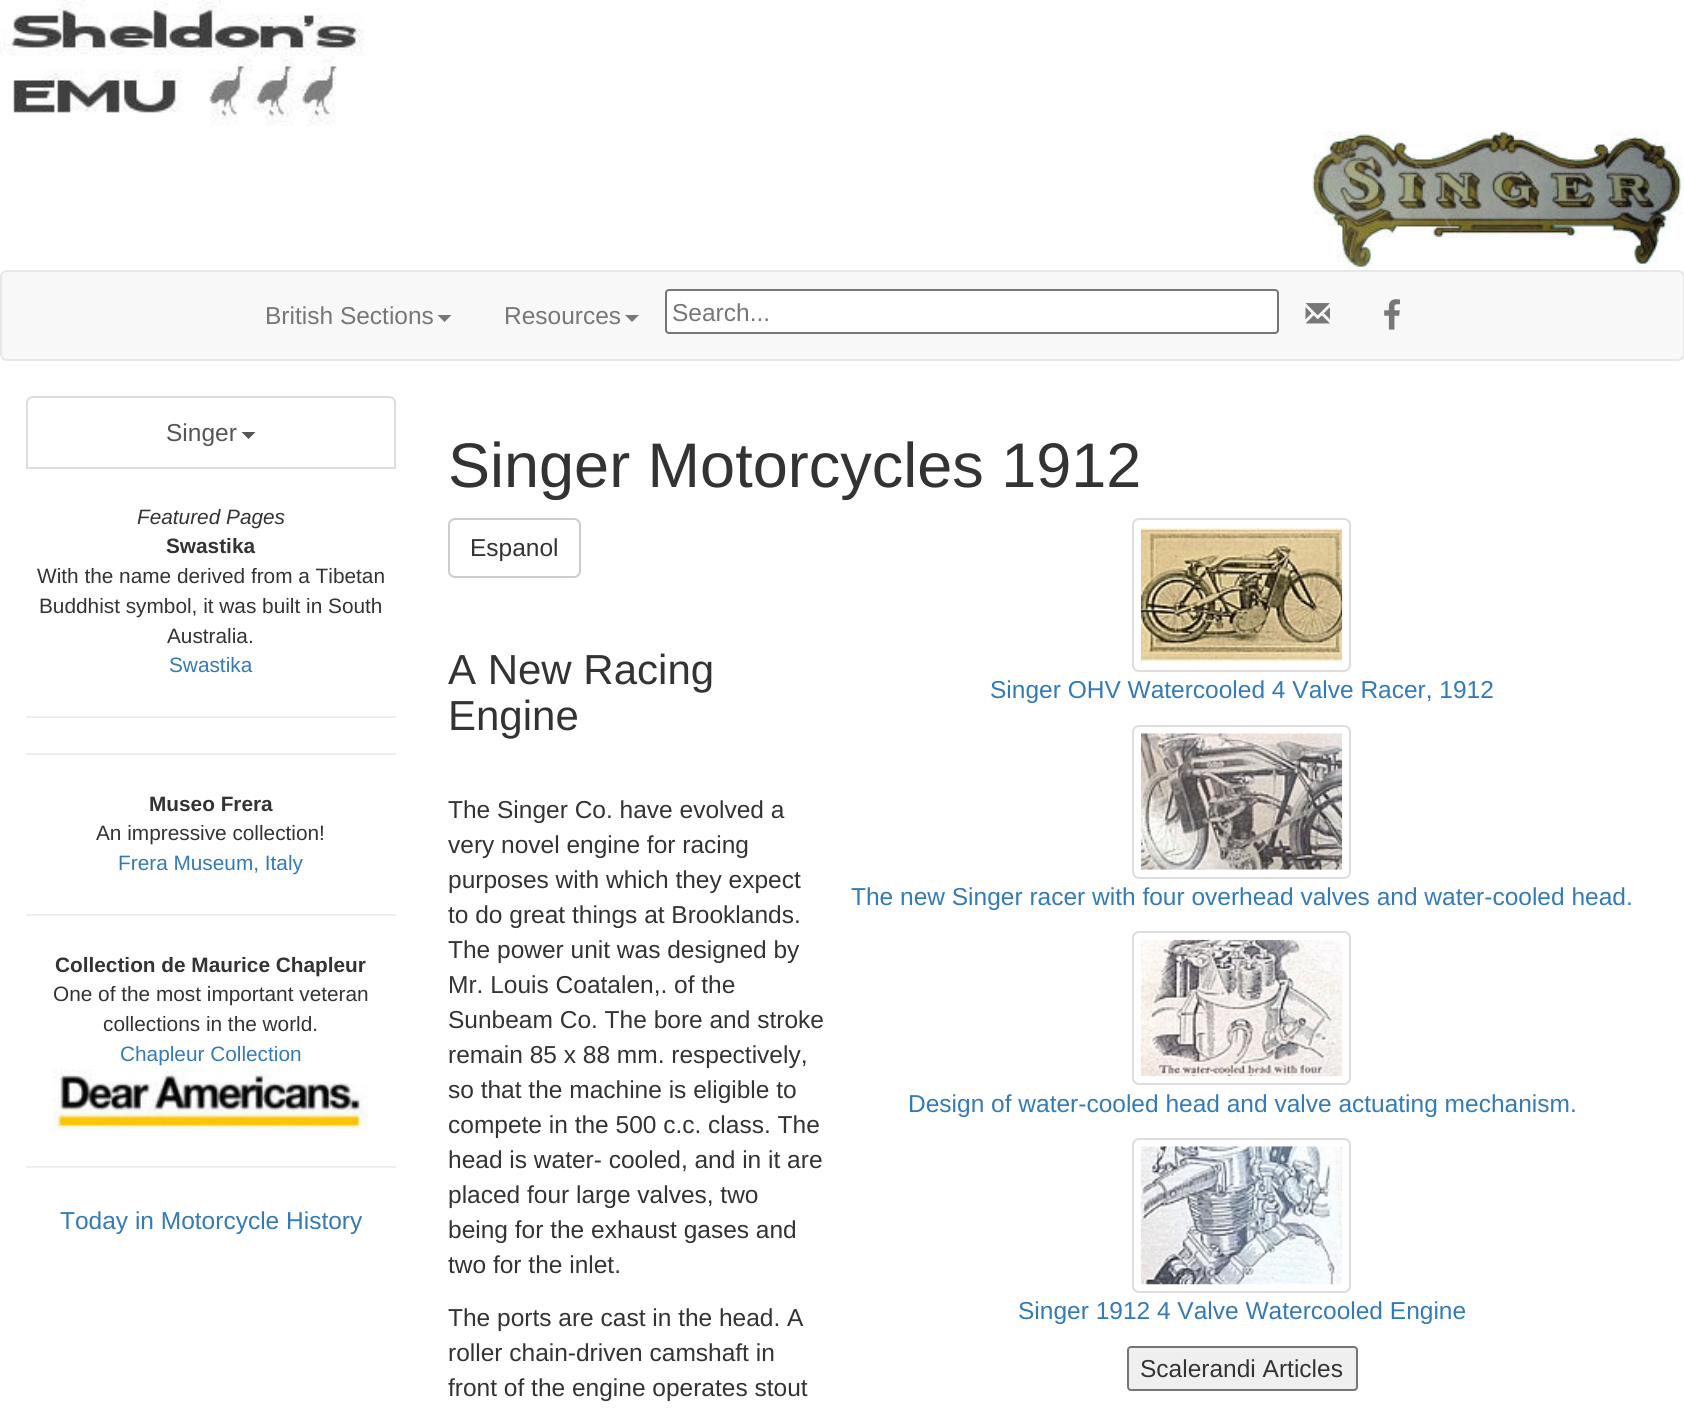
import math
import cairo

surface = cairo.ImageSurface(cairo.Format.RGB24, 1684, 1416)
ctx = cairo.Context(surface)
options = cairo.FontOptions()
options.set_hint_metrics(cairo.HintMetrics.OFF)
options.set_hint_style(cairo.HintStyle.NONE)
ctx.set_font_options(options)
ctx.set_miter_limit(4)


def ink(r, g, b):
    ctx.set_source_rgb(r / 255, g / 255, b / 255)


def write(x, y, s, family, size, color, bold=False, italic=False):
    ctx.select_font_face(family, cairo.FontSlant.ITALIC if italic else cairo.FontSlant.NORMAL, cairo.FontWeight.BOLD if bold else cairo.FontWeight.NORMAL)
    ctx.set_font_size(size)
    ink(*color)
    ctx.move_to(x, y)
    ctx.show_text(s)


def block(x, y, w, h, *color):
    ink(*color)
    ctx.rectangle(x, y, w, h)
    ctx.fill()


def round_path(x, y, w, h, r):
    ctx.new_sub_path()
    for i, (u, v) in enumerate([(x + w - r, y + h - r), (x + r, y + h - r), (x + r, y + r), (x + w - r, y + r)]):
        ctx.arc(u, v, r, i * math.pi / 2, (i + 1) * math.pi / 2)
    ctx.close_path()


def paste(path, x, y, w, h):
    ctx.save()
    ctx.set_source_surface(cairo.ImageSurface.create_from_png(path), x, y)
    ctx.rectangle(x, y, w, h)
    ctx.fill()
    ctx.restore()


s1 = dict(family="Liberation Sans", size=24.5, color=(119, 119, 119))
s2 = dict(family="Liberation Sans", size=24.5, color=(85, 85, 85))
s3 = dict(family="Liberation Sans", size=20.8, color=(51, 51, 51), italic=True)
s4 = dict(family="Liberation Sans", size=20.8, color=(51, 51, 51), bold=True)
s5 = dict(family="Liberation Sans", size=20.8, color=(51, 51, 51))
s6 = dict(family="Liberation Sans", size=20.8, color=(51, 122, 183))
s7 = dict(family="Liberation Sans", size=24.5, color=(51, 122, 183))
s8 = dict(family="Liberation Sans", size=63, color=(51, 51, 51))
s9 = dict(family="Liberation Sans", size=24.5, color=(51, 51, 51))
s10 = dict(family="Liberation Sans", size=42, color=(51, 51, 51))

ink(255, 255, 255)
ctx.paint()
paste("pic1.png", 0, 0, 364, 126)
paste("pic2.png", 1312, 131, 371, 139)
ink(248, 248, 248)
round_path(1, 271, 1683, 89, 6)
ctx.fill_preserve()
ink(231, 231, 231)
ctx.stroke()
write(265, 324, "British Sections", **s1)
ctx.new_path()
ctx.move_to(437.5, 315)
ctx.line_to(451.5, 315)
ctx.line_to(444.5, 322)
ctx.close_path()
ctx.fill()
write(504, 324, "Resources", **s1)
ctx.new_path()
ctx.move_to(625, 315)
ctx.line_to(639, 315)
ctx.line_to(632, 322)
ctx.close_path()
ctx.fill()
ink(255, 255, 255)
round_path(666, 290, 612, 43, 3)
ctx.fill_preserve()
ink(118, 118, 118)
ctx.stroke()
write(672, 321, "Search...", **s1)
paste("pic3.png", 1305, 303, 25, 21)
paste("pic4.png", 1384, 299, 16, 31)
ctx.new_path()
ctx.move_to(33, 397)
ctx.line_to(389, 397)
ctx.curve_to(392.5, 397, 395, 399.5, 395, 403)
ctx.line_to(395, 468)
ctx.line_to(27, 468)
ctx.line_to(27, 403)
ctx.curve_to(27, 399.5, 29.5, 397, 33, 397)
ctx.close_path()
ink(221, 221, 221)
ctx.stroke()
write(166, 441, "Singer", **s2)
ctx.new_path()
ctx.move_to(241.5, 432)
ctx.line_to(255.5, 432)
ctx.line_to(248.5, 439)
ctx.close_path()
ctx.fill()
write(137, 524, "Featured Pages", **s3)
write(166, 553, "Swastika", **s4)
write(37, 583, "With the name derived from a Tibetan", **s5)
write(39, 613, "Buddhist symbol, it was built in South", **s5)
write(167, 643, "Australia.", **s5)
write(169, 672, "Swastika", **s6)
block(26, 716, 370, 2, 238, 238, 238)
block(26, 753, 370, 2, 238, 238, 238)
write(149, 811, "Museo Frera", **s4)
write(96, 840, "An impressive collection!", **s5)
write(118, 870, "Frera Museum, Italy", **s6)
block(26, 914, 370, 2, 238, 238, 238)
write(55, 972, "Collection de Maurice Chapleur", **s4)
write(53, 1001, "One of the most important veteran", **s5)
write(103, 1031, "collections in the world.", **s5)
write(120, 1061, "Chapleur Collection", **s6)
paste("pic5.png", 52, 1069, 316, 62)
block(26, 1166, 370, 2, 238, 238, 238)
write(60, 1229, "Today in Motorcycle History", **s7)
write(448, 487, "Singer Motorcycles 1912", **s8)
round_path(449, 519, 131, 58, 6)
ink(204, 204, 204)
ctx.stroke()
write(470, 556, "Espanol", **s9)
write(448, 684, "A New Racing", **s10)
write(448, 730, "Engine", **s10)
round_path(1133, 519, 217, 152, 6)
ink(221, 221, 221)
ctx.stroke()
paste("pic6.png", 1141, 527, 202, 136)
write(990, 698, "Singer OHV Watercooled 4 Valve Racer, 1912", **s7)
round_path(1133, 726, 217, 152, 6)
ink(221, 221, 221)
ctx.stroke()
paste("pic7.png", 1141, 733, 202, 137)
write(851, 905, "The new Singer racer with four overhead valves and water-cooled head.", **s7)
round_path(1133, 932, 217, 152, 6)
ink(221, 221, 221)
ctx.stroke()
paste("pic8.png", 1141, 939, 201, 138)
write(908, 1112, "Design of water-cooled head and valve actuating mechanism.", **s7)
round_path(1133, 1139, 217, 153, 6)
ink(221, 221, 221)
ctx.stroke()
paste("pic9.png", 1141, 1146, 201, 139)
write(1018, 1319, "Singer 1912 4 Valve Watercooled Engine", **s7)
ink(239, 239, 239)
round_path(1128, 1347, 229, 43, 3)
ctx.fill_preserve()
ink(118, 118, 118)
ctx.stroke()
write(1140, 1377, "Scalerandi Articles", **s9)
write(448, 818, "The Singer Co. have evolved a", **s9)
write(448, 853, "very novel engine for racing", **s9)
write(448, 888, "purposes with which they expect", **s9)
write(448, 923, "to do great things at Brooklands.", **s9)
write(448, 958, "The power unit was designed by", **s9)
write(448, 993, "Mr. Louis Coatalen,. of the", **s9)
write(448, 1028, "Sunbeam Co. The bore and stroke", **s9)
write(448, 1063, "remain 85 x 88 mm. respectively,", **s9)
write(448, 1098, "so that the machine is eligible to", **s9)
write(448, 1133, "compete in the 500 c.c. class. The", **s9)
write(448, 1168, "head is water- cooled, and in it are", **s9)
write(448, 1203, "placed four large valves, two", **s9)
write(448, 1238, "being for the exhaust gases and", **s9)
write(448, 1273, "two for the inlet.", **s9)
write(448, 1326, "The ports are cast in the head. A", **s9)
write(448, 1361, "roller chain-driven camshaft in", **s9)
write(448, 1396, "front of the engine operates stout", **s9)
surface.write_to_png("screenshot.png")
